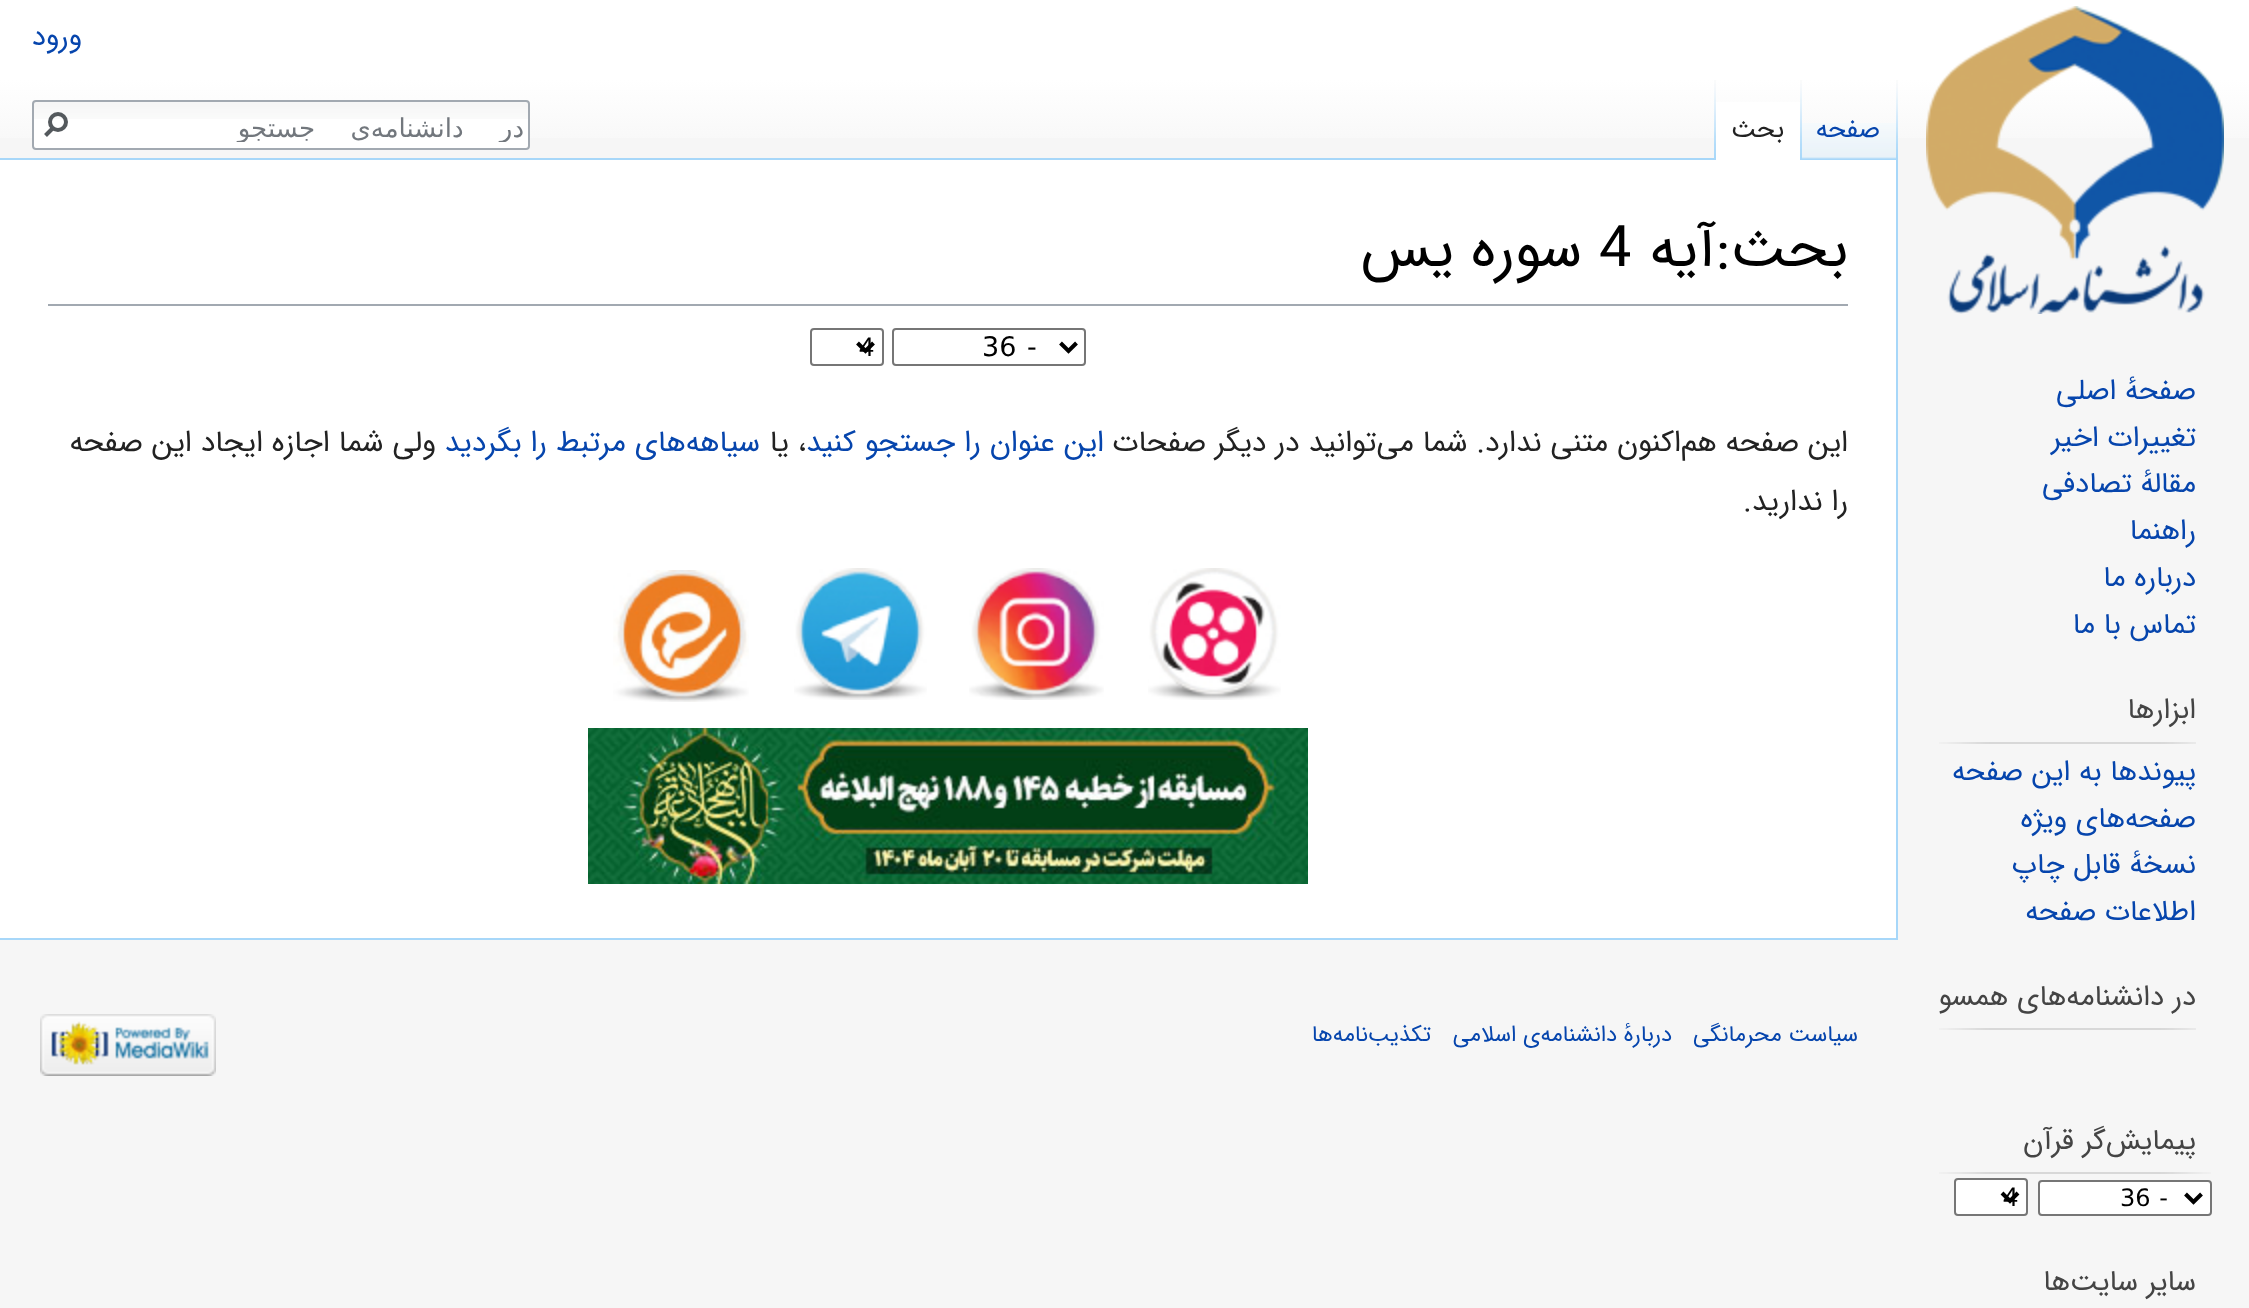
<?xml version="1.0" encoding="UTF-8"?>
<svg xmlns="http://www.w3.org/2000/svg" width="2249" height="1308">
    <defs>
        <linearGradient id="g1" gradientUnits="userSpaceOnUse" x1="1125" y1="0" x2="1125" y2="160"><stop offset="0.5" stop-color="#FFFFFF"/><stop offset="1" stop-color="#F6F6F6"/></linearGradient>
        <clipPath id="clip1"><rect x="104" y="112" width="420" height="30"/></clipPath>
    </defs>
    <rect width="100%" height="100%" fill="#F6F6F6"/>
    <rect x="0" y="0" width="2249" height="138" fill="url(#g1)"/>
    <text x="82" y="45" font-family="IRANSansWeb" font-size="28.75" direction="rtl" fill="#0645AD">ورود</text>
    <image x="1896" y="80" width="2" height="78" href="img_01.png"/>
    <rect x="0" y="158" width="1898" height="2" fill="#A7D7F9"/>
    <image x="1802" y="123" width="94" height="36" href="img_02.png"/>
    <image x="1800" y="80" width="2" height="79" href="img_03.png"/>
    <text x="1880" y="137" font-family="IRANSansWeb" font-size="26" direction="rtl" fill="#0645AD">صفحه</text>
    <rect x="1716" y="102" width="84" height="58" fill="#FFFFFF"/>
    <image x="1714" y="80" width="2" height="80" href="img_04.png"/>
    <text x="1784" y="137" font-family="IRANSansWeb" font-size="26" direction="rtl" fill="#222222">بحث</text>
    <rect x="32" y="100" width="498" height="50" rx="4" fill="#FFFFFF"/>
    <image x="32" y="102" width="498" height="17" href="img_05.png"/>
    <rect x="33" y="101" width="496" height="48" rx="3" fill="none" stroke="#A2A9B1" stroke-width="2"/>
    <g clip-path="url(#clip1)">
        <text x="524" y="137" word-spacing="28" font-family="DejaVu Sans" font-size="26" direction="rtl" fill="#72777D">در دانشنامه‌ی</text>
        <text x="315" y="137" font-family="DejaVu Sans" font-size="26" direction="rtl" fill="#72777D">جستجو</text>
    </g>
    <path d="M 45.5 135.5 L 53.5 127.5" fill="none" stroke="#54595D" stroke-width="4"/>
    <circle cx="58" cy="122" r="8" fill="none" stroke="#54595D" stroke-width="4"/>
    <image x="1926" y="6" width="298" height="308" href="img_06.png"/>
    <text font-family="IRANSansWeb" font-size="28.75" direction="rtl" fill="#0645AD">
        <tspan x="2196" y="399">صفحهٔ اصلی</tspan>
        <tspan x="2196" y="446">تغییرات اخیر</tspan>
        <tspan x="2196" y="492">مقالهٔ تصادفی</tspan>
        <tspan x="2196" y="539">راهنما</tspan>
        <tspan x="2196" y="586">درباره ما</tspan>
        <tspan x="2196" y="633">تماس با ما</tspan>
    </text>
    <text x="2196" y="718" font-family="IRANSansWeb" font-size="28.75" direction="rtl" fill="#444444">ابزارها</text>
    <image x="1939" y="742" width="257" height="2" href="img_07.png"/>
    <text font-family="IRANSansWeb" font-size="28.75" direction="rtl" fill="#0645AD">
        <tspan x="2196" y="780">پیوندها به این صفحه</tspan>
        <tspan x="2196" y="827">صفحه‌های ویژه</tspan>
        <tspan x="2196" y="873">نسخهٔ قابل چاپ</tspan>
        <tspan x="2196" y="920">اطلاعات صفحه</tspan>
    </text>
    <text x="2196" y="1005" font-family="IRANSansWeb" font-size="28.75" direction="rtl" fill="#444444">در دانشنامه‌های همسو</text>
    <image x="1939" y="1028" width="257" height="2" href="img_07.png"/>
    <text x="2196" y="1149" font-family="IRANSansWeb" font-size="28.75" direction="rtl" fill="#444444">پیمایش‌گر قرآن</text>
    <image x="1939" y="1172" width="272" height="2" href="img_08.png"/>
    <rect x="2039" y="1181" width="172" height="34" rx="3" fill="#FFFFFF" stroke="#767676" stroke-width="2"/>
    <path d="M 2185.5 1194 L 2193.5 1202 L 2201.5 1194" fill="none" stroke="#000000" stroke-width="4"/>
    <text x="2120" y="1206" word-spacing="1" font-family="DejaVu Sans" font-size="24" fill="#000000">36 -</text>
    <rect x="1955" y="1179" width="72" height="36" rx="3" fill="#FFFFFF" stroke="#767676" stroke-width="2"/>
    <path d="M 2002 1193 L 2010 1201 L 2018 1193" fill="none" stroke="#000000" stroke-width="4"/>
    <text x="2003" y="1206" font-family="Liberation Sans" font-size="27" fill="#000000">4</text>
    <text x="2196" y="1290" font-family="IRANSansWeb" font-size="28.75" direction="rtl" fill="#444444">سایر سایت‌ها</text>
    <rect x="0" y="160" width="1896" height="778" fill="#FFFFFF"/>
    <rect x="1896" y="158" width="2" height="782" fill="#A7D7F9"/>
    <rect x="0" y="938" width="1898" height="2" fill="#A7D7F9"/>
    <rect x="48" y="304" width="1800" height="2" fill="#A2A9B1"/>
    <text x="1848" y="266" font-family="IRANSansWeb" font-size="57.5" direction="rtl" fill="#000000">بحث:آیه</text>
    <text x="1599" y="266" font-family="IRANSansWeb" font-size="57.5" fill="#000000">4</text>
    <text x="1582" y="266" font-family="IRANSansWeb" font-size="57.5" direction="rtl" fill="#000000">سوره یس</text>
    <rect x="893" y="329" width="192" height="36" rx="3" fill="none" stroke="#767676" stroke-width="2"/>
    <path d="M 1060.5 343 L 1068.5 351 L 1076.5 343" fill="none" stroke="#000000" stroke-width="4"/>
    <text x="982" y="356" word-spacing="2" font-family="DejaVu Sans" font-size="27" fill="#000000">36 -</text>
    <rect x="811" y="329" width="72" height="36" rx="3" fill="none" stroke="#767676" stroke-width="2"/>
    <path d="M 857.5 343 L 865.5 351 L 873.5 343" fill="none" stroke="#000000" stroke-width="4"/>
    <text x="859" y="356" font-family="Liberation Sans" font-size="27" fill="#000000">4</text>
    <text x="1848" y="451" font-family="IRANSansWeb" font-size="29.75" direction="rtl" fill="#222222">این صفحه هم‌اکنون متنی ندارد. شما می‌توانید در دیگر صفحات</text>
    <text x="1104" y="451" font-family="IRANSansWeb" font-size="29.75" direction="rtl" fill="#0645AD">این عنوان را جستجو کنید</text>
    <text x="806" y="451" font-family="IRANSansWeb" font-size="29.75" direction="rtl" fill="#222222">، یا</text>
    <text x="760" y="451" font-family="IRANSansWeb" font-size="29.75" direction="rtl" fill="#0645AD">سیاهه‌های مرتبط را بگردید</text>
    <text x="436" y="451" font-family="IRANSansWeb" font-size="29.75" direction="rtl" fill="#222222">ولی شما اجازه ایجاد این صفحه</text>
    <text x="1848" y="510" font-family="IRANSansWeb" font-size="29.75" direction="rtl" fill="#222222">را ندارید.</text>
    <image x="1148" y="568" width="133" height="132" href="img_09.png"/>
    <image x="969" y="568" width="135" height="132" href="img_10.png"/>
    <image x="794" y="568" width="133" height="132" href="img_11.png"/>
    <image x="613" y="570" width="136" height="132" href="img_12.png"/>
    <image x="588" y="728" width="720" height="156" href="img_13.png"/>
    <text x="1858" y="1041" font-family="IRANSansWeb" font-size="22.5" direction="rtl" fill="#0645AD">سیاست محرمانگی</text>
    <text x="1672" y="1041" font-family="IRANSansWeb" font-size="22.5" direction="rtl" fill="#0645AD">دربارهٔ دانشنامه‌ی اسلامی</text>
    <text x="1431" y="1041" font-family="IRANSansWeb" font-size="22.5" direction="rtl" fill="#0645AD">تکذیب‌نامه‌ها</text>
    <image x="40" y="1014" width="176" height="62" href="img_14.png"/>
</svg>
